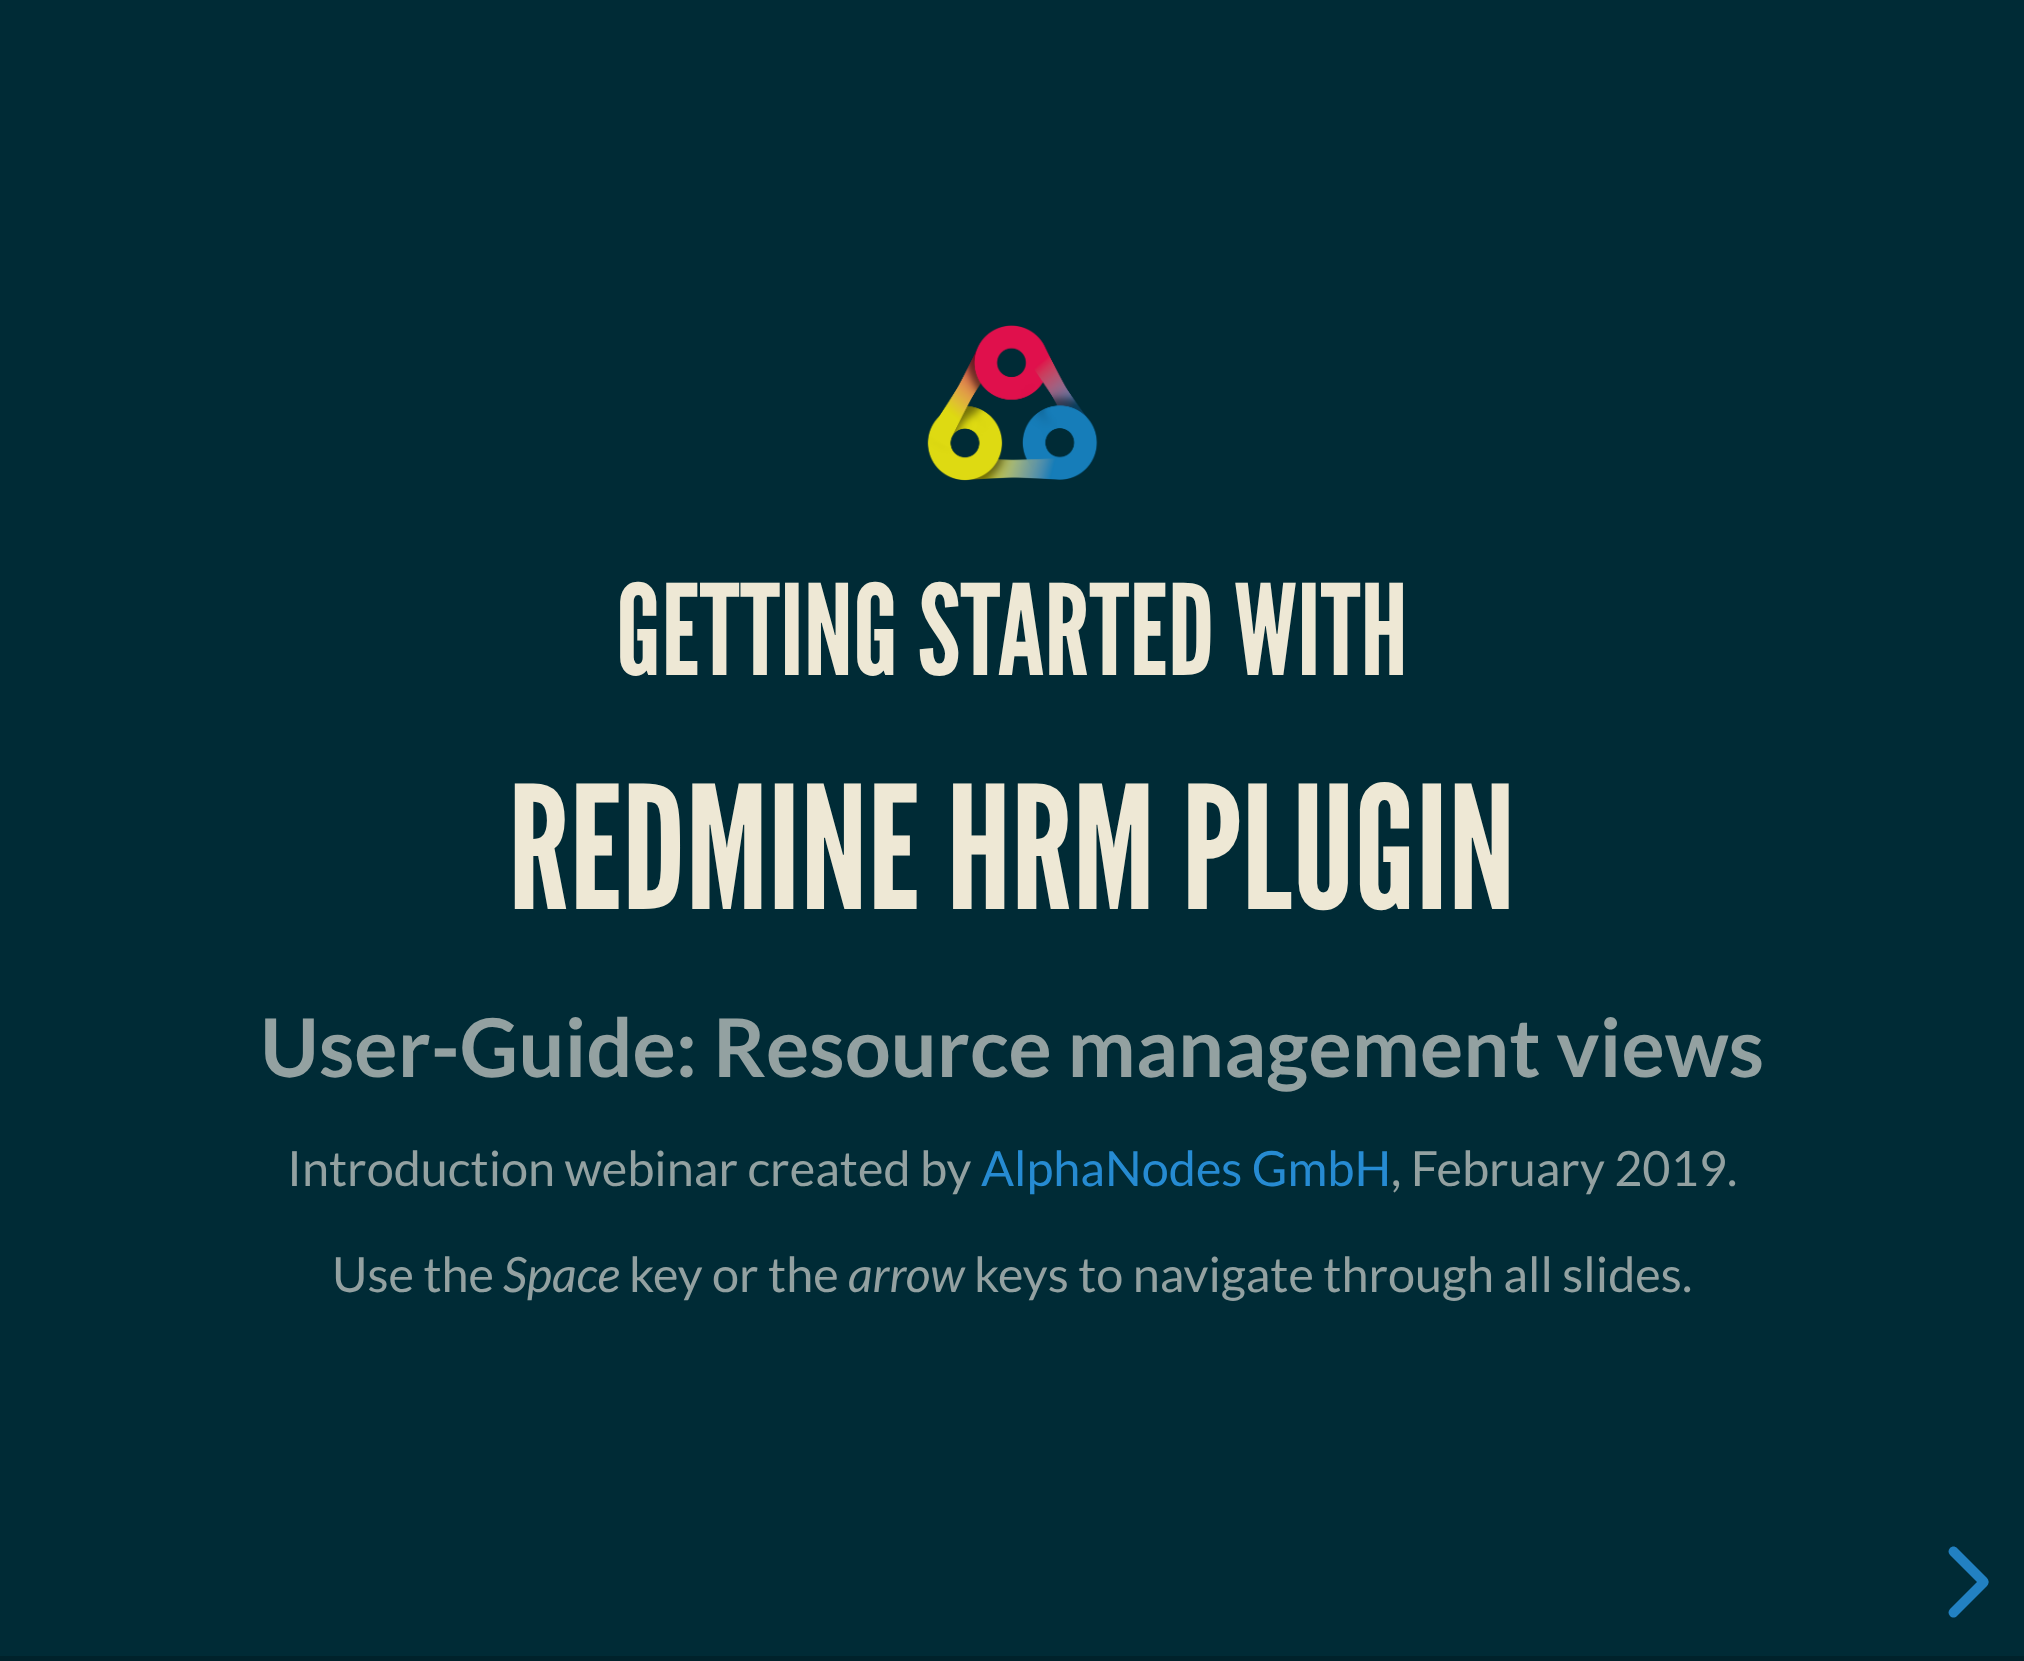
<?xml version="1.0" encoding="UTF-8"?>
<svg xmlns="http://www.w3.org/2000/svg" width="2024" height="1661">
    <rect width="100%" height="100%" fill="#002B36"/>
    <image x="927" y="325" width="171" height="156" href="img_01.png"/>
    <text x="616" y="675" font-family="League Gothic" font-size="125.5" fill="#EEE8D5">GETTING STARTED WITH</text>
    <text x="508" y="909" font-family="League Gothic" font-size="170.75" fill="#EEE8D5">REDMINE HRM PLUGIN</text>
    <text x="260" y="1077" font-family="Lato" font-size="81" font-weight="700" fill="#93A1A1">User-Guide: Resource management views</text>
    <text x="287" y="1186" font-family="Lato" font-size="48.6" fill="#93A1A1">Introduction webinar created by</text>
    <text x="981" y="1186" font-family="Lato" font-size="48.6" fill="#268BD2">AlphaNodes GmbH</text>
    <text x="1391" y="1186" font-family="Lato" font-size="48.6" fill="#93A1A1">, February 2019.</text>
    <text x="332" y="1292" font-family="Lato" font-size="48.6" fill="#93A1A1">Use the</text>
    <text x="503" y="1292" font-family="Lato" font-size="48.6" font-style="italic" fill="#93A1A1">Space</text>
    <text x="629" y="1292" font-family="Lato" font-size="48.6" fill="#93A1A1">key or the</text>
    <text x="848" y="1292" font-family="Lato" font-size="48.6" font-style="italic" fill="#93A1A1">arrow</text>
    <text x="974" y="1292" font-family="Lato" font-size="48.6" fill="#93A1A1">keys to navigate through all slides.</text>
    <path d="M 1980 1585 L 1950 1555 C 1948 1553 1948 1550 1950 1548 C 1952 1546 1955 1546 1957 1548 L 1987 1578 C 1989 1580 1989 1583 1987 1585 C 1985 1587 1982 1587 1980 1585 Z" fill="#2281C2"/>
    <path d="M 1987 1586 L 1957 1616 C 1955 1618 1952 1618 1950 1616 C 1948 1614 1948 1611 1950 1609 L 1980 1579 C 1982 1577 1985 1577 1987 1579 C 1989 1581 1989 1584 1987 1586 Z" fill="#2281C2"/>
    <rect x="0" y="1656" width="2024" height="5" fill="#00222B"/>
</svg>
